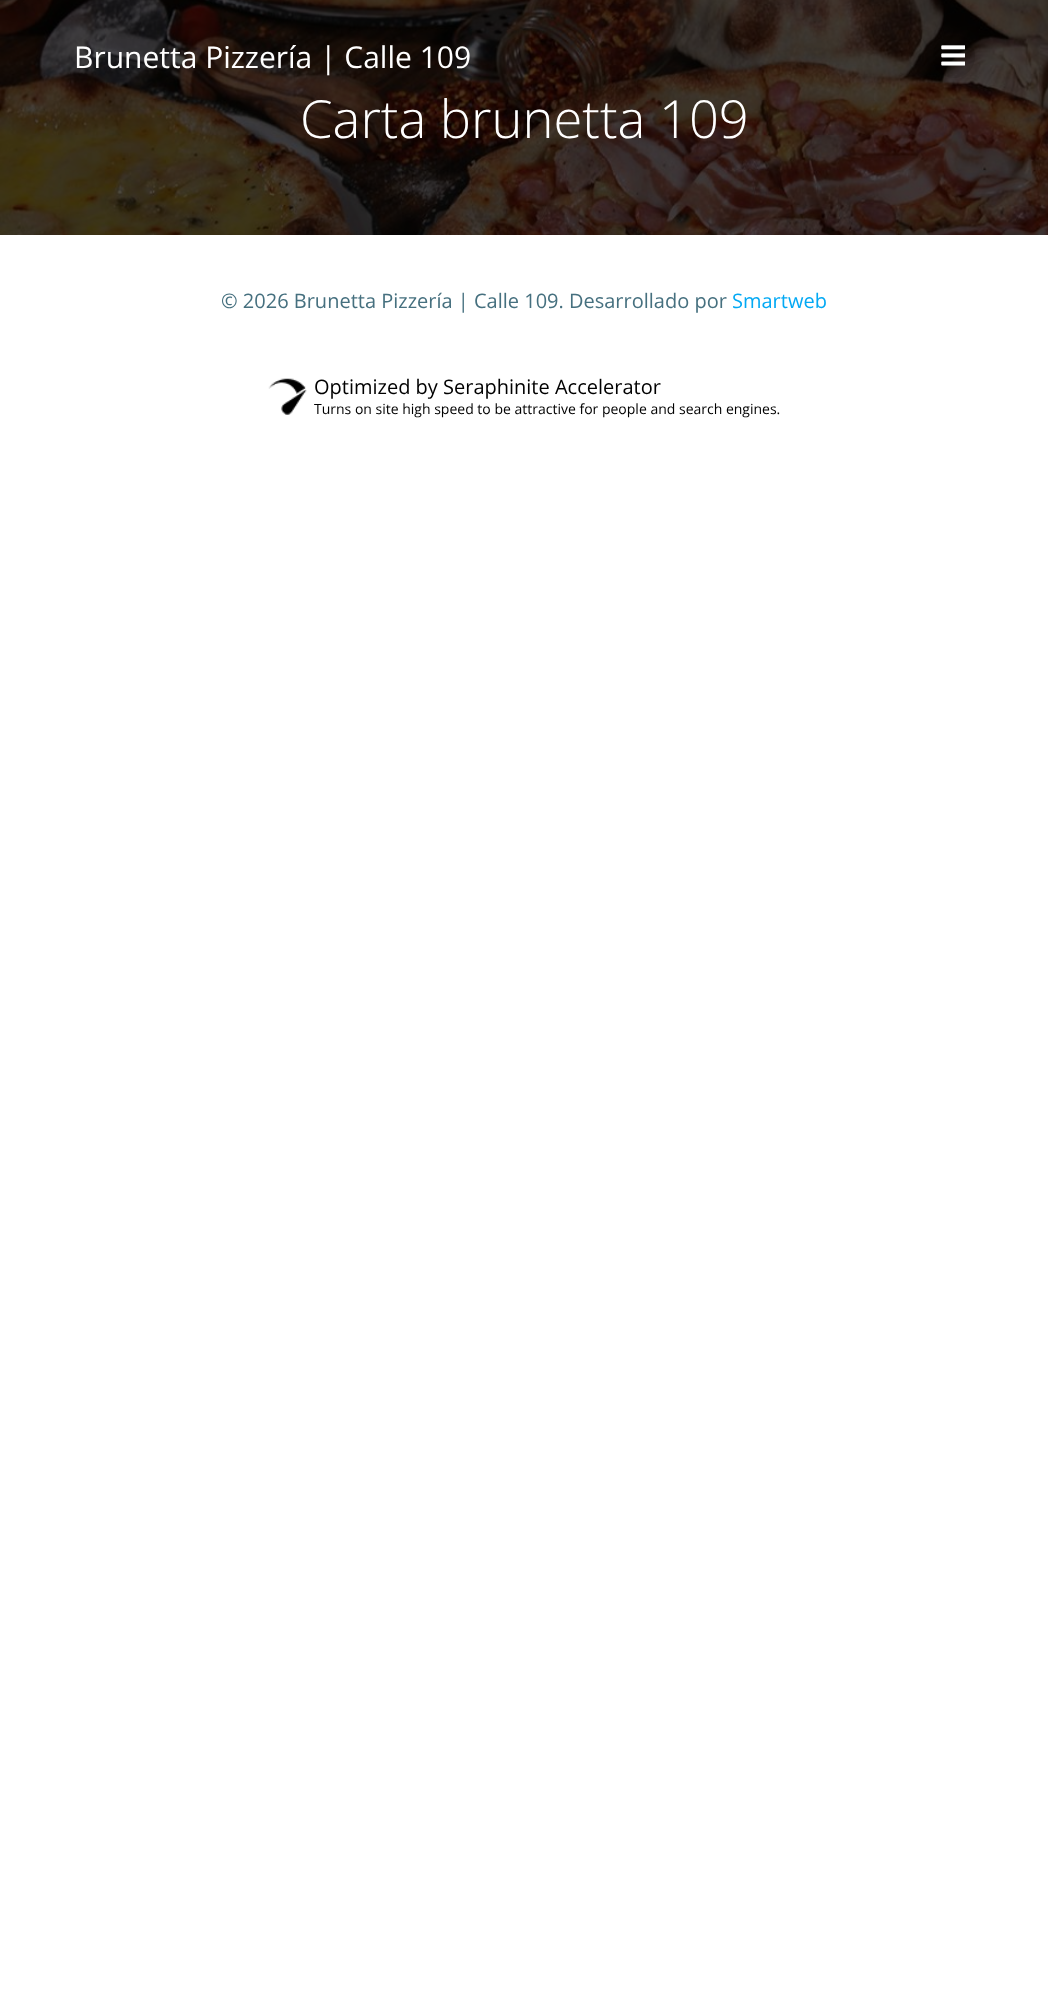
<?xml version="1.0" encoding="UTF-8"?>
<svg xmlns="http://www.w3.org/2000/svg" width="1048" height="2004">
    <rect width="100%" height="100%" fill="#FFFFFF"/>
    <image x="0" y="0" width="1048" height="235" href="img_02.png"/>
    <text x="74" y="68" font-family="Open Sans" font-size="30" fill="#FFFFFF">Brunetta Pizzería | Calle 109</text>
    <rect x="933" y="35" width="42" height="43" rx="21" fill="#000000" fill-opacity="0.1"/>
    <image x="941" y="45" width="24" height="21" href="img_01.png"/>
    <text x="300" y="138" font-family="Open Sans" font-size="52.5" font-weight="300" fill="#FFFFFF">Carta brunetta 109</text>
    <text x="221" y="308" font-family="Open Sans" font-size="20" fill="#46707F">© 2026 Brunetta Pizzería | Calle 109. Desarrollado por</text>
    <text x="732" y="308" font-family="Open Sans" font-size="20" fill="#03A9F4">Smartweb</text>
    <image x="268" y="378" width="39" height="37" href="img_03.png"/>
    <text x="314" y="394" font-family="Open Sans" font-size="20" fill="#000000">Optimized by Seraphinite Accelerator</text>
    <text x="314" y="414" font-family="Open Sans" font-size="14" fill="#000000">Turns on site high speed to be attractive for people and search engines.</text>
</svg>
